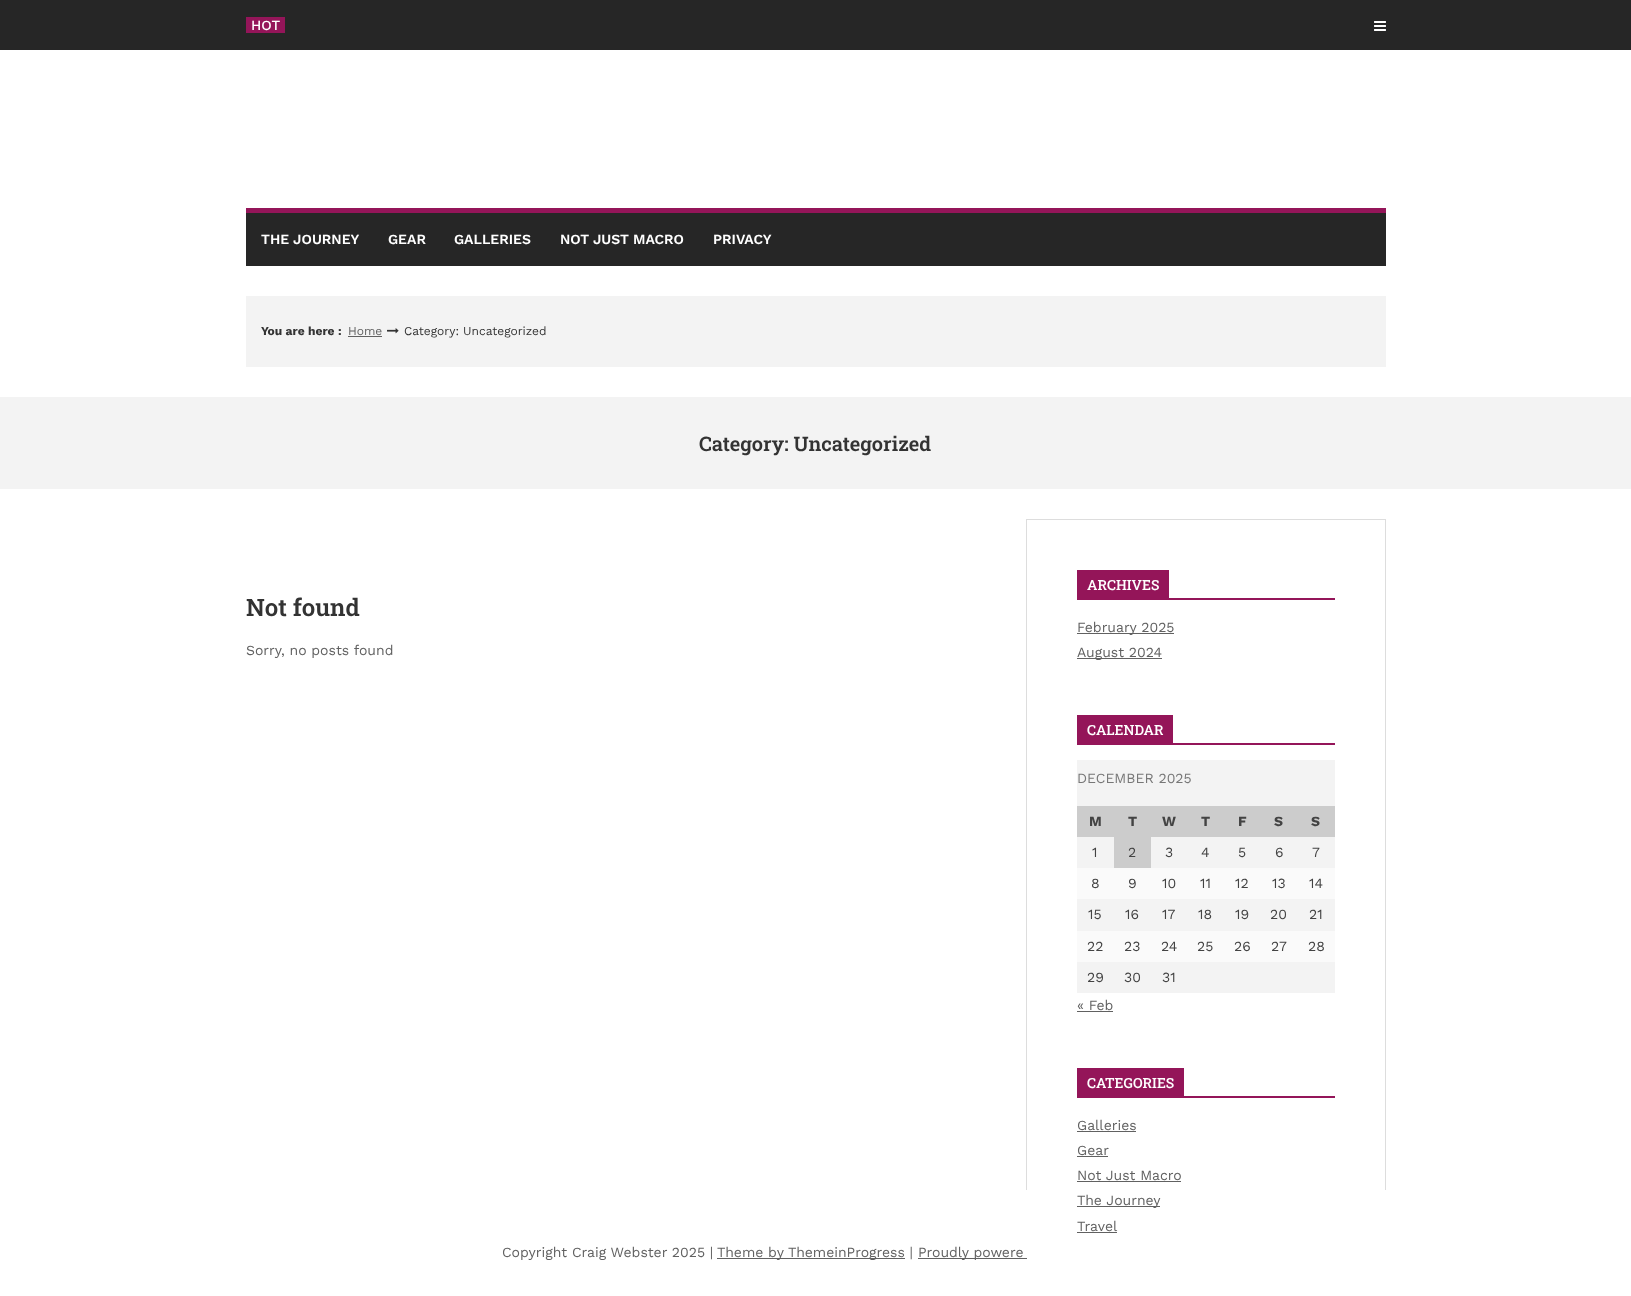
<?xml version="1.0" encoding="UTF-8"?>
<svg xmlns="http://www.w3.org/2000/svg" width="1631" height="1296">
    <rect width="100%" height="100%" fill="#FFFFFF"/>
    <rect x="0" y="0" width="1631" height="50" fill="#262626"/>
    <rect x="246" y="17" width="39" height="16" fill="#941559"/>
    <text x="251" y="30" font-family="Work Sans" font-size="14" font-weight="500" fill="#FFFFFF">HOT</text>
    <image x="1374" y="21" width="12" height="10" href="img_01.png"/>
    <rect x="246" y="208" width="1140" height="5" fill="#941559"/>
    <rect x="246" y="213" width="1140" height="53" fill="#262626"/>
    <text x="261" y="244" font-family="Work Sans" font-size="14" font-weight="600" fill="#FFFFFF">THE JOURNEY</text>
    <text x="388" y="244" font-family="Work Sans" font-size="14" font-weight="600" fill="#FFFFFF">GEAR</text>
    <text x="454" y="244" font-family="Work Sans" font-size="14" font-weight="600" fill="#FFFFFF">GALLERIES</text>
    <text x="560" y="244" font-family="Work Sans" font-size="14" font-weight="600" fill="#FFFFFF">NOT JUST MACRO</text>
    <text x="713" y="244" font-family="Work Sans" font-size="14" font-weight="600" fill="#FFFFFF">PRIVACY</text>
    <rect x="246" y="296" width="1140" height="71" fill="#F3F3F3"/>
    <text x="261" y="335" font-family="Work Sans" font-size="12" font-weight="700" fill="#333333">You are here :</text>
    <text x="348" y="335" font-family="Work Sans" font-size="12" fill="#616161">Home</text>
    <rect x="348" y="336" width="34" height="1" fill="#616161"/>
    <image x="387" y="328" width="12" height="6" href="img_02.png"/>
    <text x="404" y="335" font-family="Work Sans" font-size="12" fill="#333333">Category: Uncategorized</text>
    <rect x="0" y="397" width="1631" height="92" fill="#F3F3F3"/>
    <text x="699" y="451" font-family="Roboto Slab" font-size="20" font-weight="600" fill="#333333">Category: Uncategorized</text>
    <text x="246" y="616" font-family="Roboto Slab" font-size="24" font-weight="600" fill="#333333">Not found</text>
    <text x="246" y="655" font-family="Work Sans" font-size="14" fill="#616161">Sorry, no posts found</text>
    <rect x="1026.5" y="519.5" width="359" height="770" fill="none" stroke="#DDDDDD"/>
    <rect x="1077" y="570" width="92" height="28" fill="#941559"/>
    <text x="1087" y="590" font-family="Roboto Slab" font-size="14" font-weight="500" fill="#FFFFFF">ARCHIVES</text>
    <rect x="1077" y="598" width="258" height="2" fill="#941559"/>
    <rect x="1077" y="633" width="97" height="1" fill="#616161"/>
    <text x="1077" y="632" font-family="Work Sans" font-size="14" fill="#616161">February 2025</text>
    <rect x="1077" y="658" width="85" height="1" fill="#616161"/>
    <text x="1077" y="657" font-family="Work Sans" font-size="14" fill="#616161">August 2024</text>
    <rect x="1077" y="715" width="96" height="28" fill="#941559"/>
    <text x="1087" y="735" font-family="Roboto Slab" font-size="14" font-weight="500" fill="#FFFFFF">CALENDAR</text>
    <rect x="1077" y="743" width="258" height="2" fill="#941559"/>
    <rect x="1077" y="760" width="258" height="233" fill="#F3F3F3"/>
    <text x="1077" y="783" font-family="Work Sans" font-size="14" fill="#777777">DECEMBER 2025</text>
    <rect x="1077" y="806" width="258" height="31" fill="#CCCCCC"/>
    <text x="1089" y="826" font-family="Work Sans" font-size="14" font-weight="700" fill="#434343">M</text>
    <text x="1128" y="826" font-family="Work Sans" font-size="14" font-weight="700" fill="#434343">T</text>
    <text x="1162" y="826" font-family="Work Sans" font-size="14" font-weight="700" fill="#434343">W</text>
    <text x="1201" y="826" font-family="Work Sans" font-size="14" font-weight="700" fill="#434343">T</text>
    <text x="1238" y="826" font-family="Work Sans" font-size="14" font-weight="700" fill="#434343">F</text>
    <text x="1274" y="826" font-family="Work Sans" font-size="14" font-weight="700" fill="#434343">S</text>
    <text x="1311" y="826" font-family="Work Sans" font-size="14" font-weight="700" fill="#434343">S</text>
    <text x="1092" y="857" font-family="Work Sans" font-size="14" fill="#434343">1</text>
    <rect x="1114" y="837" width="37" height="31" fill="#CCCCCC"/>
    <text x="1128" y="857" font-family="Work Sans" font-size="14" fill="#434343">2</text>
    <text x="1165" y="857" font-family="Work Sans" font-size="14" fill="#434343">3</text>
    <text x="1201" y="857" font-family="Work Sans" font-size="14" fill="#434343">4</text>
    <text x="1238" y="857" font-family="Work Sans" font-size="14" fill="#434343">5</text>
    <text x="1275" y="857" font-family="Work Sans" font-size="14" fill="#434343">6</text>
    <text x="1312" y="857" font-family="Work Sans" font-size="14" fill="#434343">7</text>
    <rect x="1077" y="868" width="258" height="31" fill="#FAFAFA"/>
    <text x="1091" y="888" font-family="Work Sans" font-size="14" fill="#434343">8</text>
    <text x="1128" y="888" font-family="Work Sans" font-size="14" fill="#434343">9</text>
    <text x="1162" y="888" font-family="Work Sans" font-size="14" fill="#434343">10</text>
    <text x="1200" y="888" font-family="Work Sans" font-size="14" fill="#434343">11</text>
    <text x="1235" y="888" font-family="Work Sans" font-size="14" fill="#434343">12</text>
    <text x="1272" y="888" font-family="Work Sans" font-size="14" fill="#434343">13</text>
    <text x="1309" y="888" font-family="Work Sans" font-size="14" fill="#434343">14</text>
    <text x="1088" y="919" font-family="Work Sans" font-size="14" fill="#434343">15</text>
    <text x="1125" y="919" font-family="Work Sans" font-size="14" fill="#434343">16</text>
    <text x="1162" y="919" font-family="Work Sans" font-size="14" fill="#434343">17</text>
    <text x="1198" y="919" font-family="Work Sans" font-size="14" fill="#434343">18</text>
    <text x="1235" y="919" font-family="Work Sans" font-size="14" fill="#434343">19</text>
    <text x="1270" y="919" font-family="Work Sans" font-size="14" fill="#434343">20</text>
    <text x="1309" y="919" font-family="Work Sans" font-size="14" fill="#434343">21</text>
    <rect x="1077" y="931" width="258" height="31" fill="#FAFAFA"/>
    <text x="1087" y="951" font-family="Work Sans" font-size="14" fill="#434343">22</text>
    <text x="1124" y="951" font-family="Work Sans" font-size="14" fill="#434343">23</text>
    <text x="1161" y="951" font-family="Work Sans" font-size="14" fill="#434343">24</text>
    <text x="1197" y="951" font-family="Work Sans" font-size="14" fill="#434343">25</text>
    <text x="1234" y="951" font-family="Work Sans" font-size="14" fill="#434343">26</text>
    <text x="1271" y="951" font-family="Work Sans" font-size="14" fill="#434343">27</text>
    <text x="1308" y="951" font-family="Work Sans" font-size="14" fill="#434343">28</text>
    <text x="1087" y="982" font-family="Work Sans" font-size="14" fill="#434343">29</text>
    <text x="1124" y="982" font-family="Work Sans" font-size="14" fill="#434343">30</text>
    <text x="1162" y="982" font-family="Work Sans" font-size="14" fill="#434343">31</text>
    <text x="1077" y="1010" font-family="Work Sans" font-size="14" fill="#616161">« Feb</text>
    <rect x="1077" y="1011" width="36" height="1" fill="#616161"/>
    <rect x="1077" y="1068" width="107" height="28" fill="#941559"/>
    <text x="1087" y="1088" font-family="Roboto Slab" font-size="14" font-weight="500" fill="#FFFFFF">CATEGORIES</text>
    <rect x="1077" y="1096" width="258" height="2" fill="#941559"/>
    <text x="1077" y="1130" font-family="Work Sans" font-size="14" fill="#616161">Galleries</text>
    <rect x="1077" y="1131" width="59" height="1" fill="#616161"/>
    <text x="1077" y="1155" font-family="Work Sans" font-size="14" fill="#616161">Gear</text>
    <rect x="1077" y="1156" width="31" height="1" fill="#616161"/>
    <text x="1077" y="1180" font-family="Work Sans" font-size="14" fill="#616161">Not Just Macro</text>
    <rect x="1077" y="1181" width="104" height="1" fill="#616161"/>
    <rect x="1026" y="1190" width="360" height="100" fill="#FFFFFF"/>
    <rect x="1077" y="1206" width="83" height="1" fill="#616161"/>
    <text font-family="Work Sans" font-size="14" fill="#616161">
        <tspan x="1077" y="1205">The Journey</tspan>
        <tspan x="1077" y="1231">Travel</tspan>
    </text>
    <rect x="1077" y="1232" width="40" height="1" fill="#616161"/>
    <text x="502" y="1257" font-family="Work Sans" font-size="14" fill="#616161">Copyright Craig Webster 2025 |</text>
    <rect x="717" y="1258" width="188" height="1" fill="#616161"/>
    <text x="717" y="1257" font-family="Work Sans" font-size="14" fill="#616161">Theme by ThemeinProgress |</text>
    <rect x="918" y="1258" width="109" height="1" fill="#616161"/>
    <text x="918" y="1257" font-family="Work Sans" font-size="14" fill="#616161">Proudly powere</text>
</svg>
